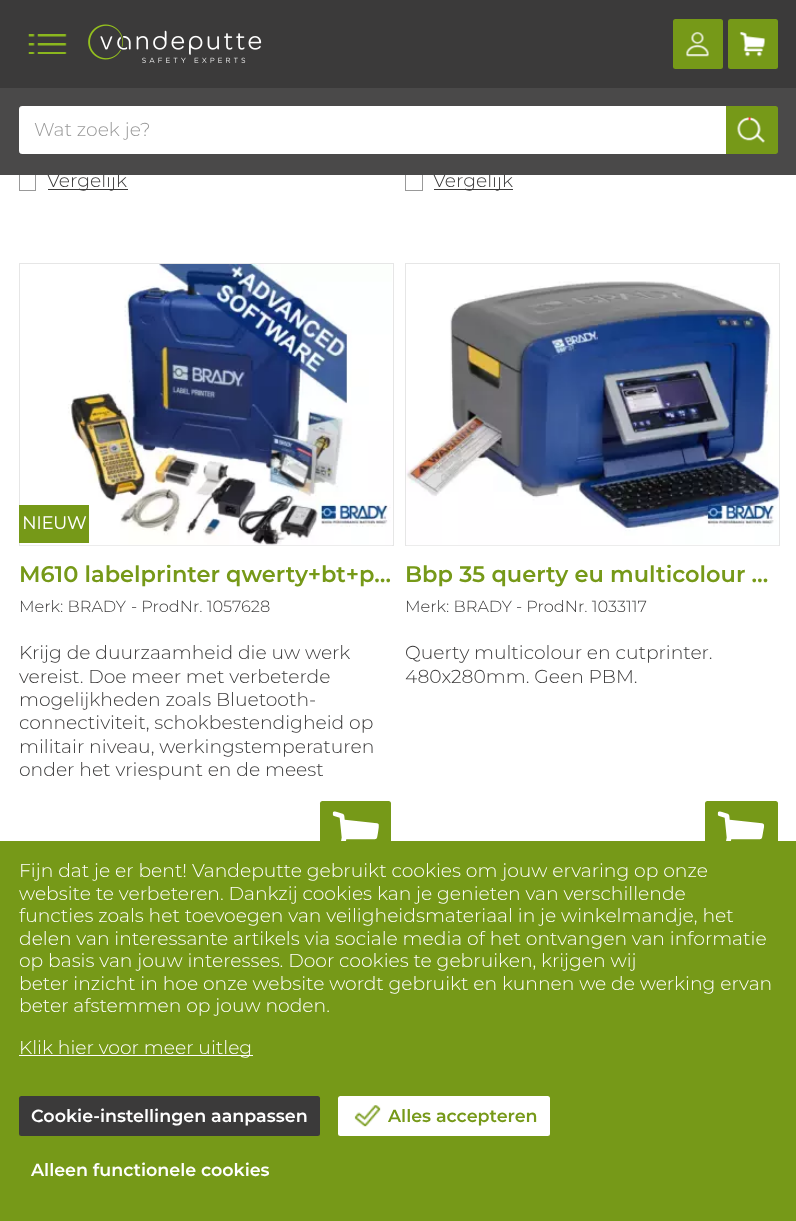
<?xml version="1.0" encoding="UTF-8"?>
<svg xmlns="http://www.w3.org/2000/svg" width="796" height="1221">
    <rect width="100%" height="100%" fill="#FFFFFF"/>
    <rect x="0" y="0" width="796" height="88" fill="#3B3A3A"/>
    <image x="28" y="34" width="39" height="20" href="img_01.png"/>
    <image x="88" y="24" width="174" height="39" href="img_02.png"/>
    <rect x="673" y="19" width="50" height="50" rx="2.5" fill="#769918"/>
    <image x="686" y="32" width="23" height="25" href="img_03.png"/>
    <rect x="728" y="19" width="50" height="50" rx="2.5" fill="#769918"/>
    <image x="739" y="32" width="27" height="25" href="img_04.png"/>
    <rect x="19.5" y="174.5" width="16" height="16" fill="none" stroke="#999999"/>
    <rect x="48" y="189" width="80" height="1" fill="#3B3A3A"/>
    <text x="47" y="187" font-family="Montserrat" font-size="18.75" font-weight="300" fill="#3B3A3A">Vergelijk</text>
    <rect x="405.5" y="174.5" width="17" height="16" fill="none" stroke="#999999"/>
    <rect x="434" y="189" width="79" height="1" fill="#3B3A3A"/>
    <text x="433" y="187" font-family="Montserrat" font-size="18.75" font-weight="300" fill="#3B3A3A">Vergelijk</text>
    <rect x="0" y="88" width="796" height="87" fill="#4A4949"/>
    <path d="M 21.5 106.5 H 768 C 773 106.5 777.5 111 777.5 116 V 144 C 777.5 149 773 153.5 768 153.5 H 21.5 C 20.5 153.5 19.5 152.5 19.5 151.5 V 108.5 C 19.5 107.5 20.5 106.5 21.5 106.5 Z" fill="#FFFFFF" stroke="#FFFFFF"/>
    <text x="34" y="136" font-family="Montserrat" font-size="18.75" font-weight="300" fill="#999999">Wat zoek je?</text>
    <path d="M 726 106 H 775.5 C 777 106 778 107 778 108.5 V 151.5 C 778 153 777 154 775.5 154 H 726 Z" fill="#769918"/>
    <image x="737" y="117" width="28" height="26" href="img_05.png"/>
    <rect x="19.5" y="263.5" width="374" height="282" fill="none" stroke="#E6E6E6"/>
    <image x="20" y="264" width="372" height="282" href="img_06.png"/>
    <rect x="19" y="505" width="70" height="38" fill="#769918"/>
    <text x="22" y="529" font-family="Montserrat" font-size="17.5" font-weight="700" fill="#FFFFFF">NIEUW</text>
    <text x="19" y="582" font-family="Montserrat" font-size="22.5" font-weight="600" fill="#769918">M610 labelprinter qwerty+bt+p…</text>
    <text x="19" y="612" font-family="Montserrat" font-size="16.25" font-weight="300" fill="#3B3A3A">Merk: BRADY</text>
    <text x="131" y="612" font-family="Montserrat" font-size="16.25" font-weight="300" fill="#3B3A3A">- ProdNr. 1057628</text>
    <text font-family="Montserrat" font-size="18.75" font-weight="300" fill="#3B3A3A">
        <tspan x="19" y="659">Krijg de duurzaamheid die uw werk</tspan>
        <tspan x="19" y="683">vereist. Doe meer met verbeterde</tspan>
        <tspan x="19" y="706">mogelijkheden zoals Bluetooth-</tspan>
        <tspan x="19" y="729">connectiviteit, schokbestendigheid op</tspan>
        <tspan x="19" y="753">militair niveau, werkingstemperaturen</tspan>
        <tspan x="19" y="776">onder het vriespunt en de meest</tspan>
    </text>
    <rect x="320" y="801" width="71" height="63" rx="2.5" fill="#769918"/>
    <image x="332" y="811" width="47" height="30" href="img_07.png"/>
    <rect x="405.5" y="263.5" width="374" height="282" fill="none" stroke="#E6E6E6"/>
    <image x="406" y="281" width="373" height="265" href="img_08.png"/>
    <text x="405" y="582" font-family="Montserrat" font-size="22.5" font-weight="600" fill="#769918">Bbp 35 querty eu multicolour …</text>
    <text x="405" y="612" font-family="Montserrat" font-size="16.25" font-weight="300" fill="#3B3A3A">Merk: BRADY</text>
    <text x="516" y="612" font-family="Montserrat" font-size="16.25" font-weight="300" fill="#3B3A3A">- ProdNr. 1033117</text>
    <text font-family="Montserrat" font-size="18.75" font-weight="300" fill="#3B3A3A">
        <tspan x="405" y="659">Querty multicolour en cutprinter.</tspan>
        <tspan x="405" y="683">480x280mm. Geen PBM.</tspan>
    </text>
    <rect x="705" y="801" width="73" height="63" rx="2.5" fill="#769918"/>
    <image x="717" y="811" width="48" height="30" href="img_09.png"/>
    <rect x="0" y="841" width="796" height="380" fill="#769918"/>
    <text font-family="Montserrat" font-size="18.75" font-weight="300" fill="#FFFFFF">
        <tspan x="19" y="877">Fijn dat je er bent! Vandeputte gebruikt cookies om jouw ervaring op onze</tspan>
        <tspan x="19" y="900">website te verbeteren. Dankzij cookies kan je genieten van verschillende</tspan>
        <tspan x="19" y="922">functies zoals het toevoegen van veiligheidsmateriaal in je winkelmandje, het</tspan>
        <tspan x="19" y="945">delen van interessante artikels via sociale media of het ontvangen van informatie</tspan>
        <tspan x="19" y="967">op basis van jouw interesses. Door cookies te gebruiken, krijgen wij</tspan>
        <tspan x="19" y="990">beter inzicht in hoe onze website wordt gebruikt en kunnen we de werking ervan</tspan>
        <tspan x="19" y="1012">beter afstemmen op jouw noden.</tspan>
    </text>
    <rect x="19" y="1055" width="234" height="1" fill="#FFFFFF"/>
    <text x="19" y="1054" font-family="Montserrat" font-size="18.75" font-weight="300" fill="#FFFFFF">Klik hier voor meer uitleg</text>
    <rect x="19" y="1096" width="301" height="40" rx="2.5" fill="#3B3A3A"/>
    <text x="31" y="1122" font-family="Montserrat" font-size="17.5" font-weight="600" fill="#FFFFFF">Cookie-instellingen aanpassen</text>
    <rect x="338" y="1096" width="212" height="40" rx="2.5" fill="#FFFFFF"/>
    <image x="354" y="1105" width="27" height="22" href="img_10.png"/>
    <text x="388" y="1122" font-family="Montserrat" font-size="17.5" font-weight="600" fill="#769918">Alles accepteren</text>
    <text x="31" y="1176" font-family="Montserrat" font-size="17.5" font-weight="600" fill="#FFFFFF">Alleen functionele cookies</text>
</svg>
